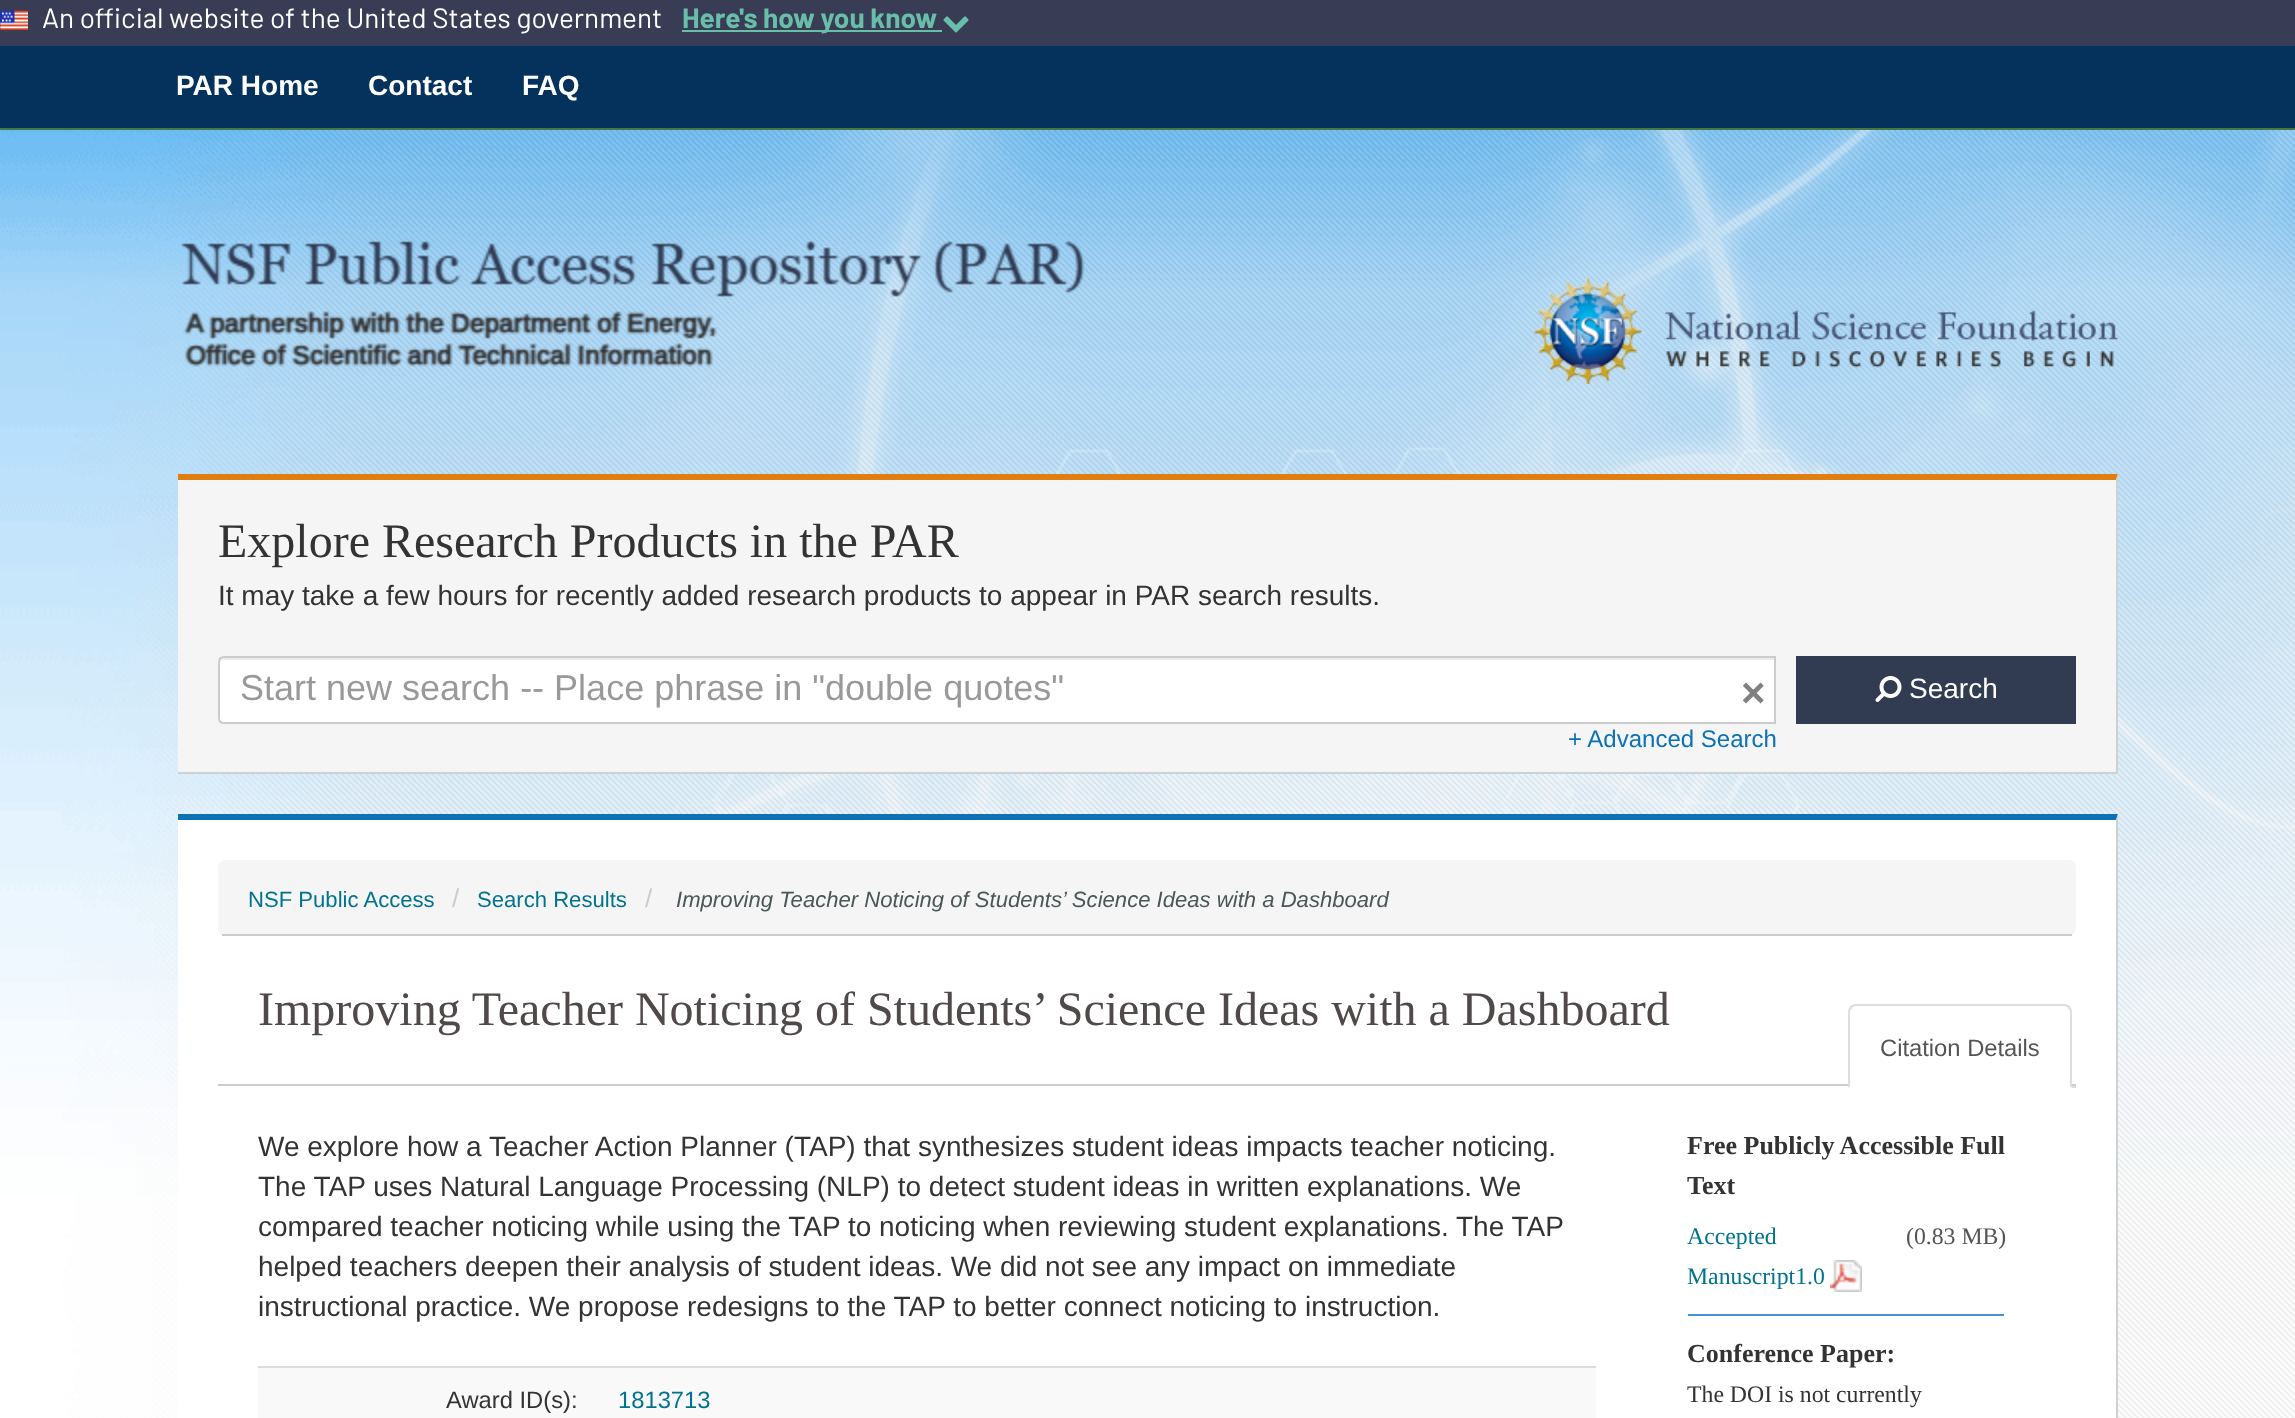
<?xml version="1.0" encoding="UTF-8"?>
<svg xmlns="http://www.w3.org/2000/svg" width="2295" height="1418">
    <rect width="100%" height="100%" fill="#FFFFFF"/>
    <image x="0" y="130" width="2295" height="1288" href="img_01.png"/>
    <rect x="0" y="0" width="2295" height="46" fill="#383C54"/>
    <image x="0" y="10" width="28" height="21" href="img_02.png"/>
    <text x="42" y="28" font-family="Barlow" font-size="28" fill="#FFFFFF">An official website of the United States government</text>
    <rect x="682" y="30" width="260" height="2" fill="#69BEAA"/>
    <text x="682" y="28" font-family="Barlow" font-size="28" font-weight="700" fill="#69BEAA">Here's how you know</text>
    <image x="943" y="16" width="26" height="17" href="img_03.png"/>
    <rect x="0" y="46" width="2295" height="82" fill="#04325D"/>
    <rect x="0" y="128" width="2295" height="2" fill="#447744"/>
    <text x="176" y="95" font-family="Liberation Sans" font-size="28" font-weight="700" fill="#FFFFFF">PAR Home</text>
    <text x="368" y="95" font-family="Liberation Sans" font-size="28" font-weight="700" fill="#FFFFFF">Contact</text>
    <text x="522" y="95" font-family="Liberation Sans" font-size="28" font-weight="700" fill="#FFFFFF">FAQ</text>
    <image x="181" y="241" width="904" height="126" href="img_04.png"/>
    <image x="1534" y="278" width="584" height="106" href="img_05.png"/>
    <rect x="178" y="474" width="1940" height="298" fill="#F5F5F5"/>
    <path d="M 178 474 H 2118 L 2116 480 H 178 Z" fill="#E07F11"/>
    <path d="M 2118 474 V 774 L 2116 772 V 480 Z" fill="#CCD1D4"/>
    <rect x="178" y="772" width="1940" height="2" fill="#CCD1D4"/>
    <text x="218" y="557" font-family="Liberation Serif" font-size="48" fill="#333333">Explore Research Products in the PAR</text>
    <text x="218" y="605" font-family="Liberation Sans" font-size="28" fill="#333333">It may take a few hours for recently added research products to appear in PAR search results.</text>
    <path d="M 224 656 H 1776 V 724 H 224 C 220.5 724 218 721.5 218 718 V 662 C 218 658.5 220.5 656 224 656 Z" fill="#FFFFFF"/>
    <path d="M 224 660 H 1774 V 658 H 224 C 220 658 220 661 220 664 C 220 662 222 660 224 660 Z" fill="#ECECEC"/>
    <path d="M 224 657 H 1775 V 723 H 224 C 221 723 219 721 219 718 V 662 C 219 659 221 657 224 657 Z" fill="none" stroke="#CCCCCC" stroke-width="2"/>
    <text x="240" y="700" font-family="Liberation Sans" font-size="36" fill="#999999">Start new search -- Place phrase in "double quotes"</text>
    <text x="1741" y="707" font-family="Liberation Sans" font-size="42" font-weight="700" fill="#808080">×</text>
    <rect x="1796" y="656" width="280" height="68" fill="#313B52"/>
    <image x="1875" y="676" width="27" height="26" href="img_06.png"/>
    <text x="1909" y="698" font-family="Liberation Sans" font-size="28" fill="#FFFFFF">Search</text>
    <text x="1568" y="747" font-family="Liberation Sans" font-size="24" fill="#0C72B5">+ Advanced Search</text>
    <rect x="178" y="814" width="1940" height="604" fill="#FFFFFF"/>
    <path d="M 178 814 H 2118 L 2116 820 H 178 Z" fill="#0C72B5"/>
    <path d="M 2118 814 V 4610 L 2116 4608 V 820 Z" fill="#CCD1D4"/>
    <rect x="218" y="860" width="1858" height="76" rx="8" fill="#F5F5F5"/>
    <rect x="222" y="934" width="1850" height="2" fill="#CCCCCC"/>
    <text x="248" y="907" font-family="Liberation Sans" font-size="22.1" fill="#00748D">NSF Public Access</text>
    <text x="452" y="907" font-family="Liberation Sans" font-size="26" fill="#CCCCCC">/</text>
    <text x="477" y="907" font-family="Liberation Sans" font-size="22.1" fill="#00748D">Search Results</text>
    <text x="645" y="907" font-family="Liberation Sans" font-size="26" fill="#CCCCCC">/</text>
    <text x="676" y="907" font-family="Liberation Sans" font-size="22.1" font-style="italic" fill="#4A5657">Improving Teacher Noticing of Students’ Science Ideas with a Dashboard</text>
    <rect x="218" y="1084" width="1858" height="2" fill="#CCCCCC"/>
    <text x="258" y="1025" font-family="Liberation Serif" font-size="48" fill="#504949">Improving Teacher Noticing of Students’ Science Ideas with a Dashboard</text>
    <rect x="2072" y="1086" width="4" height="2" fill="#DDDDDD"/>
    <path d="M 1856 1004 H 2064 C 2068.5 1004 2072 1007.5 2072 1012 V 1088 H 1848 V 1012 C 1848 1007.5 1851.5 1004 1856 1004 Z" fill="#FFFFFF"/>
    <path d="M 1856 1004 C 1854 1004 1852 1005 1850 1006 L 1852 1008 C 1853 1007 1854 1006 1856 1006 H 2064 C 2066 1006 2067 1007 2068 1008 L 2070 1006 C 2068 1005 2066 1004 2064 1004 Z" fill="#DDDDDD"/>
    <path d="M 2072 1088 V 1012 C 2072 1010 2071 1008 2070 1006 L 2068 1008 L 2070 1011 V 1086 Z" fill="#DDDDDD"/>
    <path d="M 1848 1088 L 1850 1086 V 1011 L 1852 1008 L 1850 1006 C 1849 1008 1848 1010 1848 1012 Z" fill="#DDDDDD"/>
    <text x="1880" y="1056" font-family="Liberation Sans" font-size="23.75" fill="#555555">Citation Details</text>
    <text font-family="Liberation Sans" font-size="28" fill="#333333">
        <tspan x="258" y="1156">We explore how a Teacher Action Planner (TAP) that synthesizes student ideas impacts teacher noticing.</tspan>
        <tspan x="258" y="1196">The TAP uses Natural Language Processing (NLP) to detect student ideas in written explanations. We</tspan>
        <tspan x="258" y="1236">compared teacher noticing while using the TAP to noticing when reviewing student explanations. The TAP</tspan>
        <tspan x="258" y="1276">helped teachers deepen their analysis of student ideas. We did not see any impact on immediate</tspan>
        <tspan x="258" y="1316">instructional practice. We propose redesigns to the TAP to better connect noticing to instruction.</tspan>
    </text>
    <rect x="258" y="1368" width="1338" height="50" fill="#F9F9F9"/>
    <rect x="258" y="1366" width="1338" height="2" fill="#DDDDDD"/>
    <text x="446" y="1408" font-family="Liberation Sans" font-size="23.75" fill="#333333">Award ID(s):</text>
    <text x="618" y="1408" font-family="Liberation Sans" font-size="23.75" fill="#00748D">1813713</text>
    <text font-family="Liberation Serif" font-size="26" font-weight="700" fill="#333333">
        <tspan x="1687" y="1154">Free Publicly Accessible Full</tspan>
        <tspan x="1687" y="1194">Text</tspan>
    </text>
    <text x="1687" y="1244" font-family="Liberation Serif" font-size="23.75" fill="#00748D">Accepted</text>
    <text x="1906" y="1244" font-family="Liberation Serif" font-size="23.75" fill="#555555">(0.83 MB)</text>
    <text x="1687" y="1284" font-family="Liberation Serif" font-size="23.75" fill="#00748D">Manuscript1.0</text>
    <image x="1830" y="1260" width="32" height="32" href="img_07.png"/>
    <rect x="1688" y="1314" width="316" height="2" fill="#4391D7"/>
    <text x="1687" y="1362" font-family="Liberation Serif" font-size="26" font-weight="700" fill="#333333">Conference Paper:</text>
    <text x="1687" y="1402" font-family="Liberation Serif" font-size="23.75" fill="#333333">The DOI is not currently</text>
</svg>
